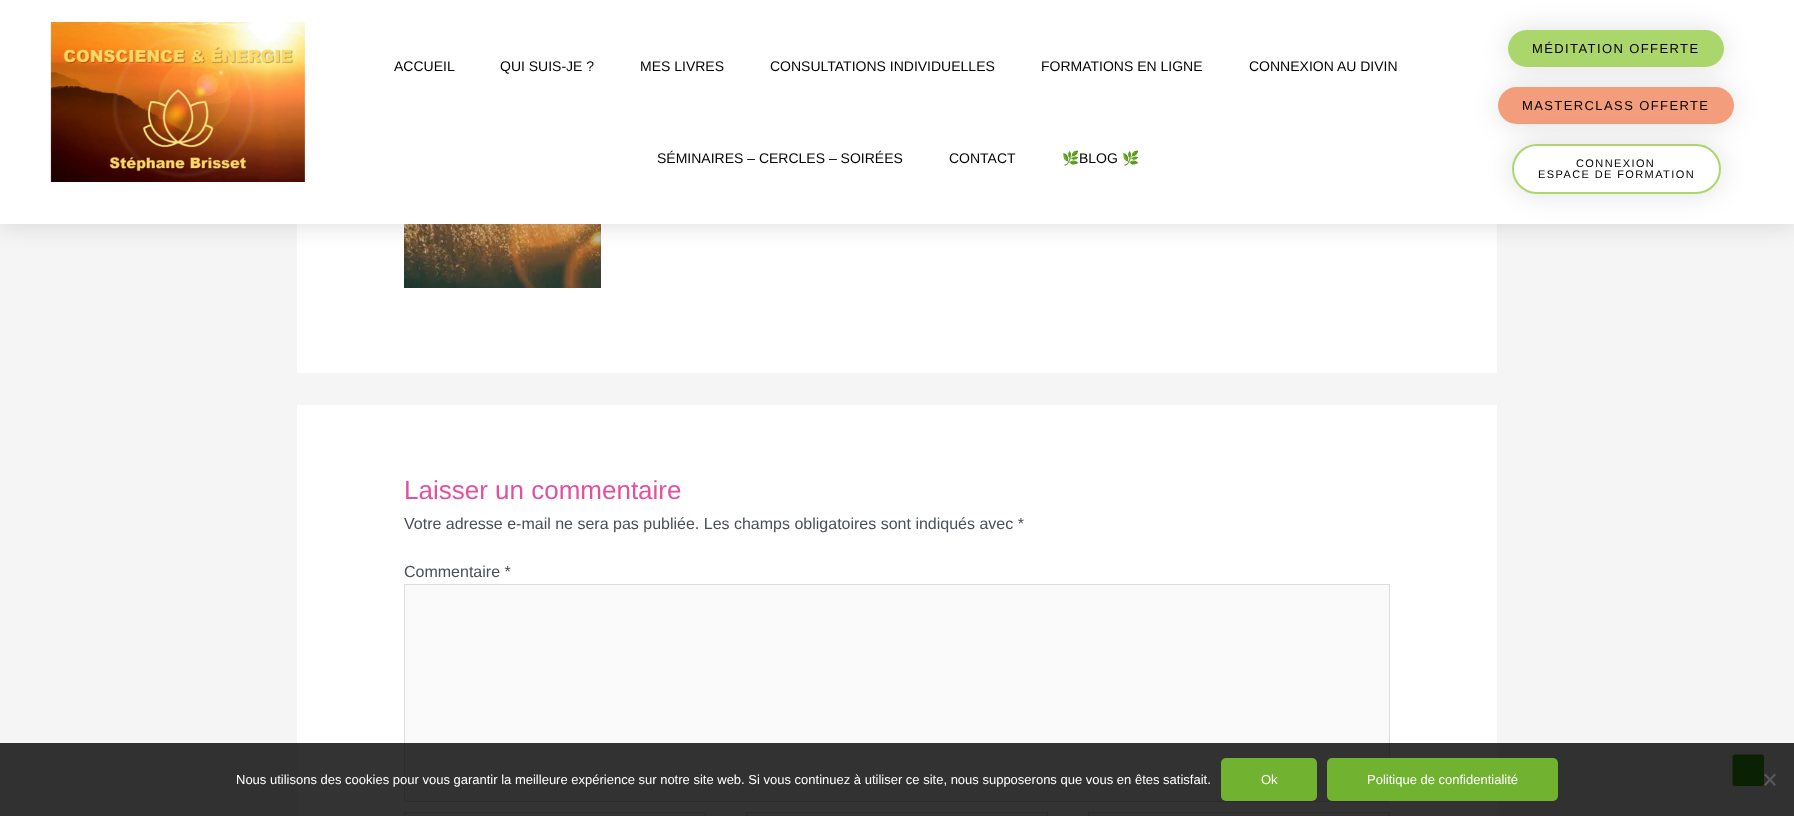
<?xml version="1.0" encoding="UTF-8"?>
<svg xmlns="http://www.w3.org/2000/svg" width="1794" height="816">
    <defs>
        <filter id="blur1" x="-50%" y="-200%" width="200%" height="500%"><feGaussianBlur stdDeviation="12"/></filter>
        <clipPath id="clip1"><path d="M 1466 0 H 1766 V 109 H 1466 Z M 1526.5 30 H 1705.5 C 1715.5 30 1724 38.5 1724 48.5 C 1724 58.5 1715.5 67 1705.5 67 H 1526.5 C 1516.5 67 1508 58.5 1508 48.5 C 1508 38.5 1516.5 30 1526.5 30 Z" clip-rule="evenodd"/></clipPath>
        <filter id="blur2" x="-50%" y="-200%" width="200%" height="500%"><feGaussianBlur stdDeviation="13.5"/></filter>
        <clipPath id="clip2"><path d="M 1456 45 H 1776 V 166 H 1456 Z M 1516.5 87 H 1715.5 C 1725.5 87 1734 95.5 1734 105.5 C 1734 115.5 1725.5 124 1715.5 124 H 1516.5 C 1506.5 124 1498 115.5 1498 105.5 C 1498 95.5 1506.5 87 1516.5 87 Z" clip-rule="evenodd"/></clipPath>
    </defs>
    <rect width="100%" height="100%" fill="#F5F5F5"/>
    <rect x="297" y="224" width="1200" height="149" fill="#FFFFFF"/>
    <image x="404" y="224" width="197" height="64" href="img_02.png"/>
    <rect x="0" y="0" width="1794" height="224" fill="#000000" fill-opacity="0.15" filter="url(#blur1)"/>
    <rect x="0" y="0" width="1794" height="224" fill="#FFFFFF"/>
    <image x="50" y="22" width="255" height="160" href="img_01.png"/>
    <text x="394" y="71" font-family="Liberation Sans" font-size="14" fill="#020101">ACCUEIL</text>
    <text x="500" y="71" font-family="Liberation Sans" font-size="14" fill="#020101">QUI SUIS-JE ?</text>
    <text x="640" y="71" font-family="Liberation Sans" font-size="14" fill="#020101">MES LIVRES</text>
    <text x="770" y="71" font-family="Liberation Sans" font-size="14" fill="#020101">CONSULTATIONS INDIVIDUELLES</text>
    <text x="1041" y="71" font-family="Liberation Sans" font-size="14" fill="#020101">FORMATIONS EN LIGNE</text>
    <text x="1249" y="71" font-family="Liberation Sans" font-size="14" fill="#020101">CONNEXION AU DIVIN</text>
    <text x="657" y="163" font-family="Liberation Sans" font-size="14" fill="#020101">SÉMINAIRES – CERCLES – SOIRÉES</text>
    <text x="949" y="163" font-family="Liberation Sans" font-size="14" fill="#020101">CONTACT</text>
    <text x="1062" y="163" font-family="Noto Color Emoji" font-size="14" fill="#020101">🌿</text>
    <text x="1079" y="163" font-family="Liberation Sans" font-size="14" fill="#020101">BLOG</text>
    <text x="1122" y="163" font-family="Noto Color Emoji" font-size="14" fill="#020101">🌿</text>
    <g clip-path="url(#clip1)">
        <rect x="1508" y="30" width="216" height="37" rx="18.5" fill="#000000" fill-opacity="0.12" filter="url(#blur2)"/>
    </g>
    <rect x="1508" y="30" width="216" height="37" rx="18.5" fill="#86C329" fill-opacity="0.69"/>
    <text x="1532" y="53" font-family="Liberation Sans" font-size="13" letter-spacing="1.4" fill="#020101">MÉDITATION OFFERTE</text>
    <g clip-path="url(#clip2)">
        <rect x="1498" y="87" width="236" height="37" rx="18.5" fill="#000000" fill-opacity="0.12" filter="url(#blur2)"/>
    </g>
    <rect x="1498" y="87" width="236" height="37" rx="18.5" fill="#EF7C52" fill-opacity="0.75"/>
    <text x="1522" y="110" font-family="Liberation Sans" font-size="13" letter-spacing="1.4" fill="#020101">MASTERCLASS OFFERTE</text>
    <rect x="1512" y="144" width="209" height="50" rx="25" fill="#000000" fill-opacity="0.12" filter="url(#blur2)"/>
    <rect x="1512" y="144" width="209" height="50" rx="25" fill="#FFFFFF"/>
    <rect x="1513" y="145" width="207" height="48" rx="24" fill="none" stroke="#86C329" stroke-opacity="0.69" stroke-width="2"/>
    <text x="1576" y="167" font-family="Liberation Sans" font-size="11" letter-spacing="1.4" fill="#020101">CONNEXION</text>
    <text x="1538" y="178" font-family="Liberation Sans" font-size="11" letter-spacing="1.4" fill="#020101">ESPACE DE FORMATION</text>
    <rect x="297" y="405" width="1200" height="411" fill="#FFFFFF"/>
    <text x="404" y="499" font-family="Liberation Sans" font-size="26" fill="#E2519F">Laisser un commentaire</text>
    <text x="404" y="529" font-family="Liberation Sans" font-size="16" fill="#4B4F58">Votre adresse e-mail ne sera pas publiée. Les champs obligatoires sont indiqués avec *</text>
    <text x="404" y="577" font-family="Liberation Sans" font-size="16" fill="#4B4F58">Commentaire *</text>
    <rect x="404.5" y="584.5" width="985" height="217" fill="#FAFAFA" stroke="#DDDDDD"/>
    <rect x="404.5" y="812.5" width="301" height="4" fill="#FAFAFA" stroke="#DDDDDD"/>
    <rect x="746.5" y="812.5" width="301" height="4" fill="#FAFAFA" stroke="#DDDDDD"/>
    <rect x="1088.5" y="812.5" width="301" height="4" fill="#FAFAFA" stroke="#DDDDDD"/>
    <path d="M 1762 786 H 1734.5 C 1733.5 786 1732.5 785 1732.5 784 V 756.5 C 1732.5 755.5 1733.5 754.5 1734.5 754.5 H 1762 C 1763 754.5 1764 755.5 1764 756.5 V 784 C 1764 785 1763 786 1762 786 Z" fill="#3BA712"/>
    <rect x="0" y="743" width="1794" height="73" fill="#000000" fill-opacity="0.8"/>
    <text x="236" y="784" font-family="Liberation Sans" font-size="13" fill="#FFFFFF">Nous utilisons des cookies pour vous garantir la meilleure expérience sur notre site web. Si vous continuez à utiliser ce site, nous supposerons que vous en êtes satisfait.</text>
    <rect x="1221" y="758" width="96" height="43" rx="5" fill="#71B230"/>
    <text x="1261" y="784" font-family="Liberation Sans" font-size="13" fill="#FFFFFF">Ok</text>
    <rect x="1327" y="758" width="231" height="43" rx="5" fill="#71B230"/>
    <text x="1367" y="784" font-family="Liberation Sans" font-size="13" fill="#FFFFFF">Politique de confidentialité</text>
    <path d="M 1774.5 773.5 L 1776 775 L 1765.5 786 L 1764 784.5 Z" fill="#595959"/>
    <path d="M 1764 775 L 1765.5 773.5 L 1776 784.5 L 1774.5 786 Z" fill="#595959"/>
</svg>
